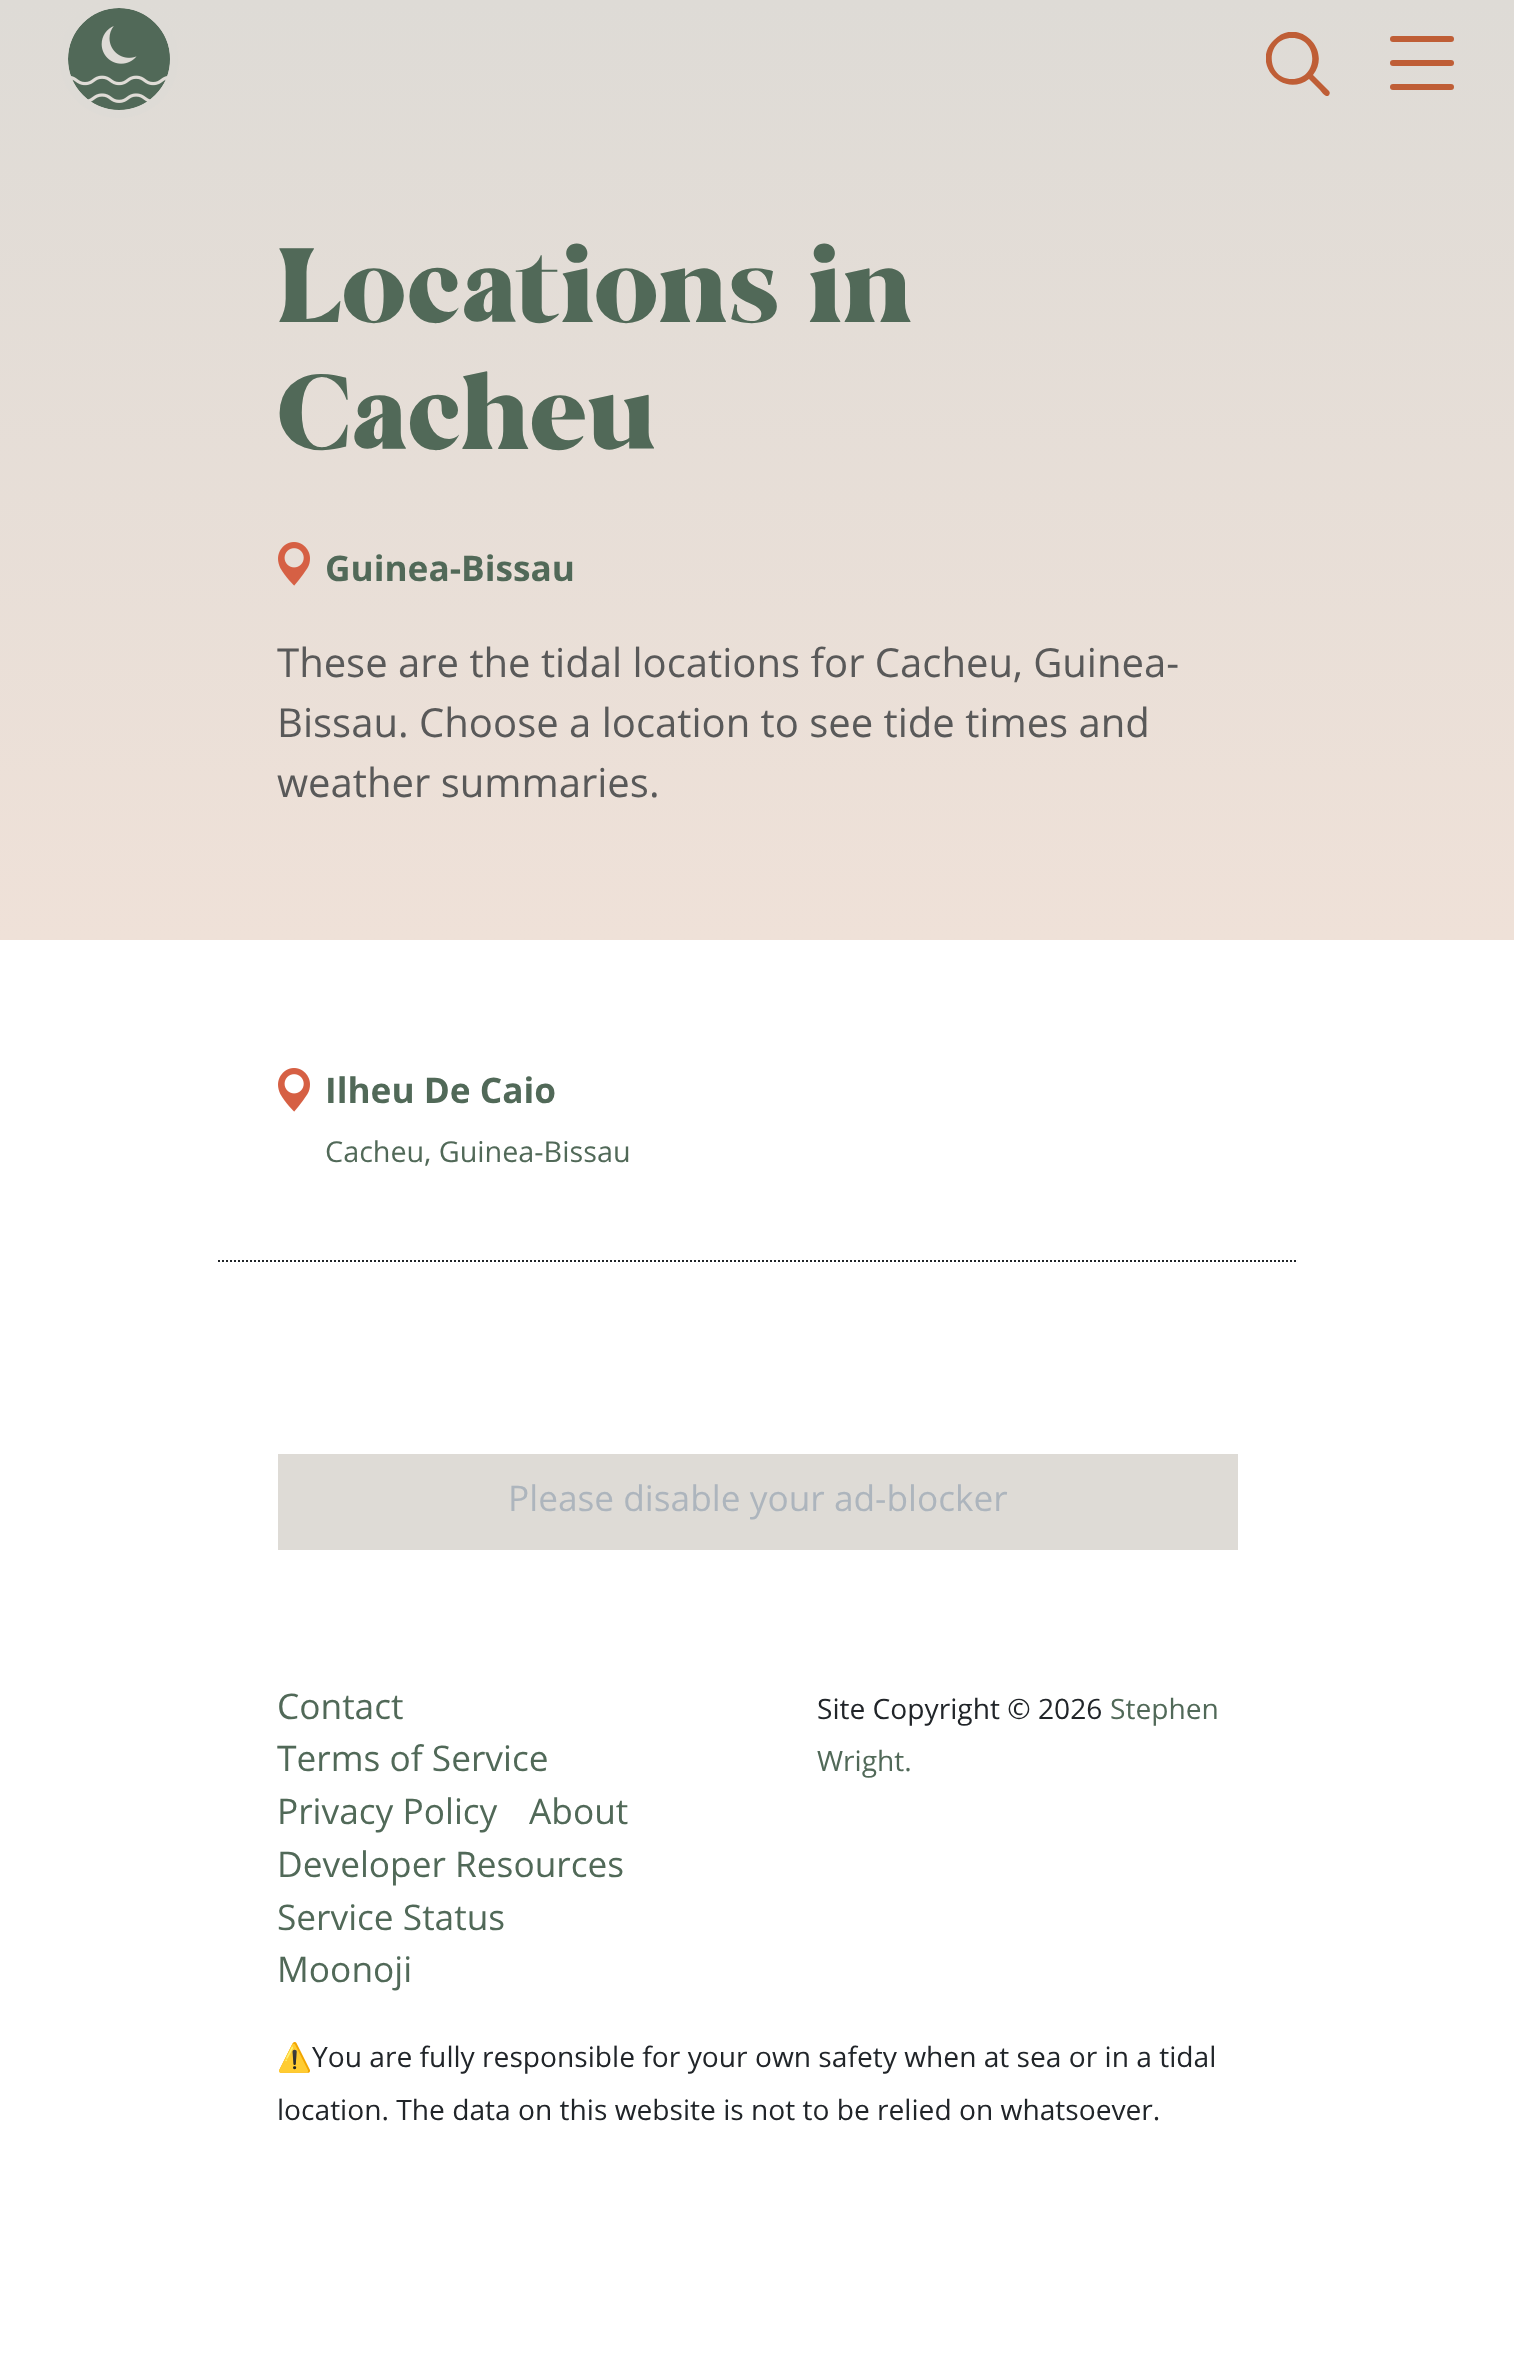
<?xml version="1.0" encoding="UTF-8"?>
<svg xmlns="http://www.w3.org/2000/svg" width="1514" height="2363">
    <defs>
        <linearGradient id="g1" gradientUnits="userSpaceOnUse" x1="757" y1="0" x2="757" y2="940"><stop offset="0" stop-color="#DEDBD6"/><stop offset="1" stop-color="#EFE1D8"/></linearGradient>
        <clipPath id="clip1"><rect x="1266" y="32" width="64" height="64"/></clipPath>
    </defs>
    <rect width="100%" height="100%" fill="#FFFFFF"/>
    <rect x="0" y="0" width="1514" height="940" fill="url(#g1)"/>
    <image x="68" y="8" width="102" height="102" href="img_01.png"/>
    <circle cx="119" cy="59" r="55" fill="none" stroke="#DEDBD6" stroke-width="8"/>
    <g clip-path="url(#clip1)">
        <path d="M 1329 91 L 1313 75 C 1333 49 1297 16 1274 40 C 1250 63 1283 99 1309 79 L 1320 90 C 1321 91 1326 99 1329 95 C 1330 94 1330 92 1329 91 Z M 1292 79 C 1265 79 1265 38 1292 38 C 1319 38 1319 79 1292 79 Z" fill="#BF5E36"/>
    </g>
    <rect x="1390" y="36" width="64" height="6" rx="3" fill="#BF5E36"/>
    <rect x="1390" y="60" width="64" height="6" rx="3" fill="#BF5E36"/>
    <rect x="1390" y="84" width="64" height="6" rx="3" fill="#BF5E36"/>
    <text font-family="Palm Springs" font-size="105.5" fill="#516958">
        <tspan x="277" y="322" word-spacing="-13">Locations in</tspan>
        <tspan x="277" y="449">Cacheu</tspan>
    </text>
    <image x="278" y="542" width="32" height="44" href="img_02.png"/>
    <text x="325" y="581" font-family="Open Sans" font-size="35.25" font-weight="700" fill="#516958">Guinea-Bissau</text>
    <text font-family="Open Sans" font-size="40" fill="#595959">
        <tspan x="277" y="677">These are the tidal locations for Cacheu, Guinea-</tspan>
        <tspan x="277" y="737">Bissau. Choose a location to see tide times and</tspan>
        <tspan x="277" y="797">weather summaries.</tspan>
    </text>
    <path d="M 218 1261 H 1298" fill="none" stroke="#212529" stroke-width="2" stroke-dasharray="2 2"/>
    <image x="278" y="1068" width="32" height="44" href="img_03.png"/>
    <text x="325" y="1103" font-family="Open Sans" font-size="35.25" font-weight="700" fill="#516958">Ilheu De Caio</text>
    <text x="325" y="1162" font-family="Open Sans" font-size="28.75" fill="#516958">Cacheu, Guinea-Bissau</text>
    <rect x="278" y="1454" width="960" height="96" fill="#DEDBD6"/>
    <text x="508" y="1511" font-family="Open Sans" font-size="35.25" fill="#ADB5BD">Please disable your ad-blocker</text>
    <text font-family="Open Sans" font-size="35.25" fill="#516958">
        <tspan x="277" y="1719">Contact</tspan>
        <tspan x="277" y="1771">Terms of Service</tspan>
        <tspan x="277" y="1824">Privacy Policy</tspan>
    </text>
    <text x="529" y="1824" font-family="Open Sans" font-size="35.25" fill="#516958">About</text>
    <text font-family="Open Sans" font-size="35.25" fill="#516958">
        <tspan x="277" y="1877">Developer Resources</tspan>
        <tspan x="277" y="1930">Service Status</tspan>
        <tspan x="277" y="1982">Moonoji</tspan>
    </text>
    <text x="817" y="1719" font-family="Open Sans" font-size="28.15" fill="#212529">Site Copyright © 2026</text>
    <text x="1110" y="1719" font-family="Open Sans" font-size="28.15" fill="#516958">Stephen</text>
    <text x="817" y="1771" font-family="Open Sans" font-size="28.15" fill="#516958">Wright.</text>
    <text x="277" y="2067" font-family="Noto Color Emoji" font-size="28.15" fill="#212529">⚠️</text>
    <text x="312" y="2067" font-family="Open Sans" font-size="28.15" fill="#212529">You are fully responsible for your own safety when at sea or in a tidal</text>
    <text x="277" y="2120" font-family="Open Sans" font-size="28.15" fill="#212529">location. The data on this website is not to be relied on whatsoever.</text>
</svg>
